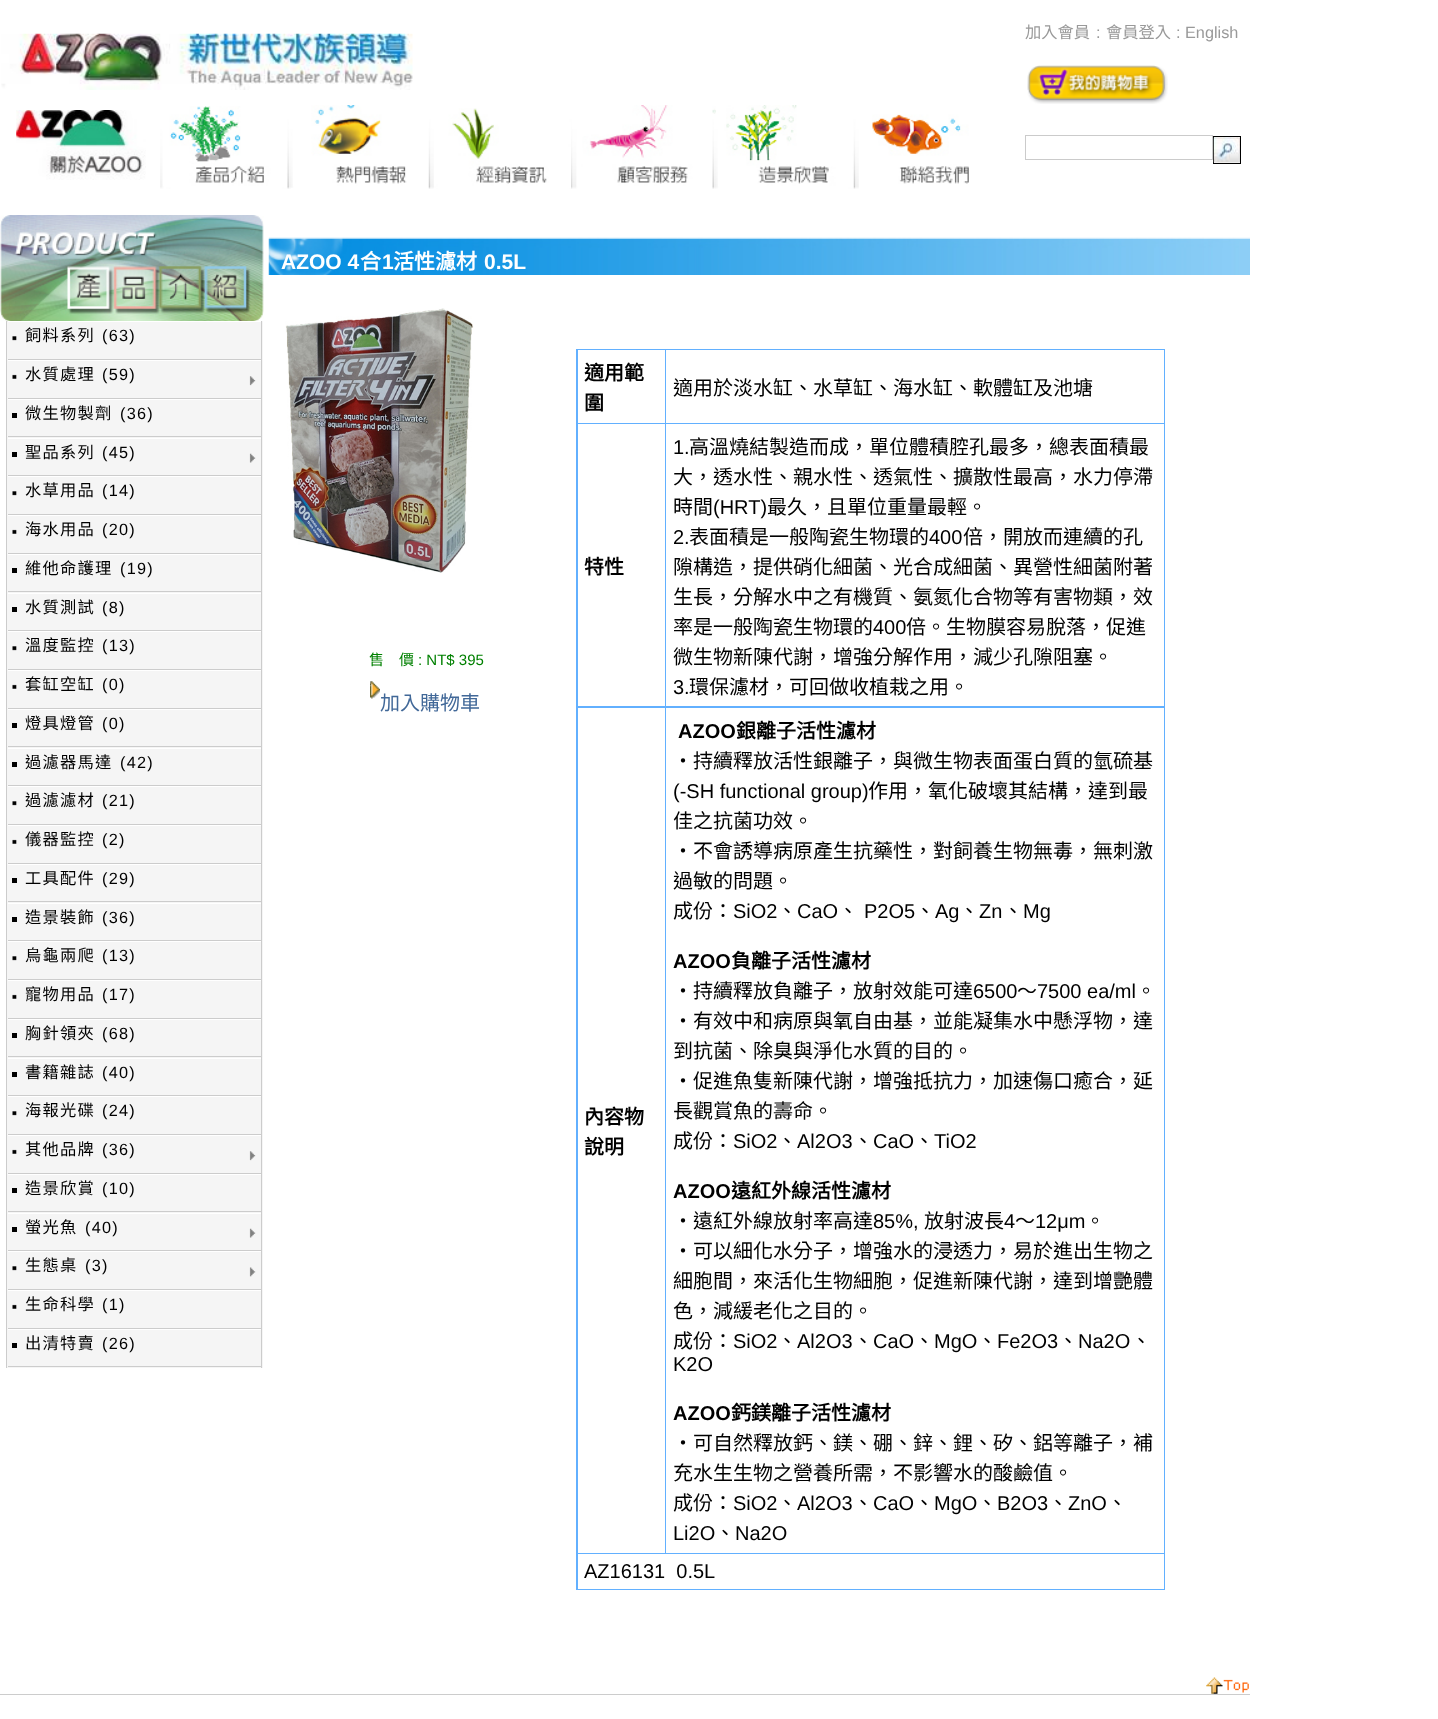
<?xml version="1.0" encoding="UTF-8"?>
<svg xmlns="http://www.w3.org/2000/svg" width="1438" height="1719">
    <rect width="100%" height="100%" fill="#FFFFFF"/>
    <image x="1" y="33" width="412" height="57" href="img_01.png"/>
    <text x="1025" y="38" font-family="Noto Sans CJK TC" font-size="16.25" fill="#999999">加入會員</text>
    <text x="1096" y="38" font-family="Liberation Sans" font-size="16.25" fill="#999999">:</text>
    <text x="1106" y="38" font-family="Noto Sans CJK TC" font-size="16.25" fill="#999999">會員登入</text>
    <text x="1176" y="38" font-family="Liberation Sans" font-size="16.25" fill="#999999">: English</text>
    <image x="1027" y="65" width="141" height="39" href="img_02.png"/>
    <image x="16" y="110" width="130" height="70" href="img_03.png"/>
    <image x="160" y="106" width="131" height="83" href="img_04.png"/>
    <image x="291" y="105" width="116" height="83" href="img_05.png"/>
    <image x="428" y="108" width="145" height="81" href="img_06.png"/>
    <image x="572" y="105" width="145" height="84" href="img_07.png"/>
    <image x="716" y="105" width="143" height="84" href="img_08.png"/>
    <image x="872" y="114" width="97" height="70" href="img_09.png"/>
    <rect x="1025.5" y="135.5" width="187" height="24" fill="none" stroke="#CBCBCB"/>
    <rect x="1213.5" y="136.5" width="27" height="27" fill="none" stroke="#000000"/>
    <image x="1213" y="137" width="27" height="26" href="img_10.png"/>
    <rect x="7" y="321" width="256" height="1047" fill="#F5F5F5"/>
    <image x="0" y="215" width="264" height="107" href="img_11.png"/>
    <rect x="261" y="321" width="1" height="1047" fill="#CCCCCC"/>
    <rect x="6" y="321" width="1" height="1047" fill="#CCCCCC"/>
    <rect x="8" y="321" width="253" height="1" fill="#FFFFFF"/>
    <rect x="8" y="359" width="253" height="1" fill="#CCCCCC"/>
    <image x="12" y="336" width="5" height="5" href="img_12.png"/>
    <text x="25" y="341" font-family="Noto Sans CJK TC" font-size="16.25" letter-spacing="1.25" fill="#000000">飼料系列</text>
    <text x="102" y="341" font-family="Liberation Sans" font-size="16.25" letter-spacing="1.25" fill="#000000">(63)</text>
    <rect x="8" y="360" width="253" height="1" fill="#FFFFFF"/>
    <rect x="8" y="398" width="253" height="1" fill="#CCCCCC"/>
    <image x="12" y="374" width="5" height="5" href="img_13.png"/>
    <text x="25" y="380" font-family="Noto Sans CJK TC" font-size="16.25" letter-spacing="1.25" fill="#000000">水質處理</text>
    <text x="102" y="380" font-family="Liberation Sans" font-size="16.25" letter-spacing="1.25" fill="#000000">(59)</text>
    <image x="249" y="376" width="7" height="10" href="img_14.png"/>
    <rect x="8" y="399" width="253" height="1" fill="#FFFFFF"/>
    <rect x="8" y="436" width="253" height="1" fill="#CCCCCC"/>
    <rect x="12" y="413" width="5" height="5" fill="#000000"/>
    <text x="25" y="419" font-family="Noto Sans CJK TC" font-size="16.25" letter-spacing="1.25" fill="#000000">微生物製劑</text>
    <text x="120" y="419" font-family="Liberation Sans" font-size="16.25" letter-spacing="1.25" fill="#000000">(36)</text>
    <rect x="8" y="438" width="253" height="1" fill="#FFFFFF"/>
    <rect x="8" y="475" width="253" height="1" fill="#CCCCCC"/>
    <rect x="12" y="452" width="5" height="5" fill="#000000"/>
    <text x="25" y="458" font-family="Noto Sans CJK TC" font-size="16.25" letter-spacing="1.25" fill="#000000">聖品系列</text>
    <text x="102" y="458" font-family="Liberation Sans" font-size="16.25" letter-spacing="1.25" fill="#000000">(45)</text>
    <image x="249" y="453" width="7" height="10" href="img_15.png"/>
    <rect x="8" y="476" width="253" height="1" fill="#FFFFFF"/>
    <rect x="8" y="514" width="253" height="1" fill="#CCCCCC"/>
    <image x="12" y="491" width="5" height="5" href="img_12.png"/>
    <text x="25" y="496" font-family="Noto Sans CJK TC" font-size="16.25" letter-spacing="1.25" fill="#000000">水草用品</text>
    <text x="102" y="496" font-family="Liberation Sans" font-size="16.25" letter-spacing="1.25" fill="#000000">(14)</text>
    <rect x="8" y="515" width="253" height="1" fill="#FFFFFF"/>
    <rect x="8" y="553" width="253" height="1" fill="#CCCCCC"/>
    <image x="12" y="529" width="5" height="5" href="img_13.png"/>
    <text x="25" y="535" font-family="Noto Sans CJK TC" font-size="16.25" letter-spacing="1.25" fill="#000000">海水用品</text>
    <text x="102" y="535" font-family="Liberation Sans" font-size="16.25" letter-spacing="1.25" fill="#000000">(20)</text>
    <rect x="8" y="554" width="253" height="1" fill="#FFFFFF"/>
    <rect x="8" y="591" width="253" height="1" fill="#CCCCCC"/>
    <rect x="12" y="568" width="5" height="5" fill="#000000"/>
    <text x="25" y="574" font-family="Noto Sans CJK TC" font-size="16.25" letter-spacing="1.25" fill="#000000">維他命護理</text>
    <text x="120" y="574" font-family="Liberation Sans" font-size="16.25" letter-spacing="1.25" fill="#000000">(19)</text>
    <rect x="8" y="593" width="253" height="1" fill="#FFFFFF"/>
    <rect x="8" y="630" width="253" height="1" fill="#CCCCCC"/>
    <rect x="12" y="607" width="5" height="5" fill="#000000"/>
    <text x="25" y="613" font-family="Noto Sans CJK TC" font-size="16.25" letter-spacing="1.25" fill="#000000">水質測試</text>
    <text x="102" y="613" font-family="Liberation Sans" font-size="16.25" letter-spacing="1.25" fill="#000000">(8)</text>
    <rect x="8" y="631" width="253" height="1" fill="#FFFFFF"/>
    <rect x="8" y="669" width="253" height="1" fill="#CCCCCC"/>
    <image x="12" y="646" width="5" height="5" href="img_12.png"/>
    <text x="25" y="651" font-family="Noto Sans CJK TC" font-size="16.25" letter-spacing="1.25" fill="#000000">溫度監控</text>
    <text x="102" y="651" font-family="Liberation Sans" font-size="16.25" letter-spacing="1.25" fill="#000000">(13)</text>
    <rect x="8" y="670" width="253" height="1" fill="#FFFFFF"/>
    <rect x="8" y="708" width="253" height="1" fill="#CCCCCC"/>
    <image x="12" y="684" width="5" height="5" href="img_13.png"/>
    <text x="25" y="690" font-family="Noto Sans CJK TC" font-size="16.25" letter-spacing="1.25" fill="#000000">套缸空缸</text>
    <text x="102" y="690" font-family="Liberation Sans" font-size="16.25" letter-spacing="1.25" fill="#000000">(0)</text>
    <rect x="8" y="709" width="253" height="1" fill="#FFFFFF"/>
    <rect x="8" y="746" width="253" height="1" fill="#CCCCCC"/>
    <rect x="12" y="723" width="5" height="5" fill="#000000"/>
    <text x="25" y="729" font-family="Noto Sans CJK TC" font-size="16.25" letter-spacing="1.25" fill="#000000">燈具燈管</text>
    <text x="102" y="729" font-family="Liberation Sans" font-size="16.25" letter-spacing="1.25" fill="#000000">(0)</text>
    <rect x="8" y="748" width="253" height="1" fill="#FFFFFF"/>
    <rect x="8" y="785" width="253" height="1" fill="#CCCCCC"/>
    <rect x="12" y="762" width="5" height="5" fill="#000000"/>
    <text x="25" y="768" font-family="Noto Sans CJK TC" font-size="16.25" letter-spacing="1.25" fill="#000000">過濾器馬達</text>
    <text x="120" y="768" font-family="Liberation Sans" font-size="16.25" letter-spacing="1.25" fill="#000000">(42)</text>
    <rect x="8" y="786" width="253" height="1" fill="#FFFFFF"/>
    <rect x="8" y="824" width="253" height="1" fill="#CCCCCC"/>
    <image x="12" y="801" width="5" height="5" href="img_12.png"/>
    <text x="25" y="806" font-family="Noto Sans CJK TC" font-size="16.25" letter-spacing="1.25" fill="#000000">過濾濾材</text>
    <text x="102" y="806" font-family="Liberation Sans" font-size="16.25" letter-spacing="1.25" fill="#000000">(21)</text>
    <rect x="8" y="825" width="253" height="1" fill="#FFFFFF"/>
    <rect x="8" y="863" width="253" height="1" fill="#CCCCCC"/>
    <image x="12" y="839" width="5" height="5" href="img_13.png"/>
    <text x="25" y="845" font-family="Noto Sans CJK TC" font-size="16.25" letter-spacing="1.25" fill="#000000">儀器監控</text>
    <text x="102" y="845" font-family="Liberation Sans" font-size="16.25" letter-spacing="1.25" fill="#000000">(2)</text>
    <rect x="8" y="864" width="253" height="1" fill="#FFFFFF"/>
    <rect x="8" y="901" width="253" height="1" fill="#CCCCCC"/>
    <rect x="12" y="878" width="5" height="5" fill="#000000"/>
    <text x="25" y="884" font-family="Noto Sans CJK TC" font-size="16.25" letter-spacing="1.25" fill="#000000">工具配件</text>
    <text x="102" y="884" font-family="Liberation Sans" font-size="16.25" letter-spacing="1.25" fill="#000000">(29)</text>
    <rect x="8" y="903" width="253" height="1" fill="#FFFFFF"/>
    <rect x="8" y="940" width="253" height="1" fill="#CCCCCC"/>
    <rect x="12" y="917" width="5" height="5" fill="#000000"/>
    <text x="25" y="923" font-family="Noto Sans CJK TC" font-size="16.25" letter-spacing="1.25" fill="#000000">造景裝飾</text>
    <text x="102" y="923" font-family="Liberation Sans" font-size="16.25" letter-spacing="1.25" fill="#000000">(36)</text>
    <rect x="8" y="941" width="253" height="1" fill="#FFFFFF"/>
    <rect x="8" y="979" width="253" height="1" fill="#CCCCCC"/>
    <image x="12" y="956" width="5" height="5" href="img_12.png"/>
    <text x="25" y="961" font-family="Noto Sans CJK TC" font-size="16.25" letter-spacing="1.25" fill="#000000">烏龜兩爬</text>
    <text x="102" y="961" font-family="Liberation Sans" font-size="16.25" letter-spacing="1.25" fill="#000000">(13)</text>
    <rect x="8" y="980" width="253" height="1" fill="#FFFFFF"/>
    <rect x="8" y="1018" width="253" height="1" fill="#CCCCCC"/>
    <image x="12" y="994" width="5" height="5" href="img_13.png"/>
    <text x="25" y="1000" font-family="Noto Sans CJK TC" font-size="16.25" letter-spacing="1.25" fill="#000000">寵物用品</text>
    <text x="102" y="1000" font-family="Liberation Sans" font-size="16.25" letter-spacing="1.25" fill="#000000">(17)</text>
    <rect x="8" y="1019" width="253" height="1" fill="#FFFFFF"/>
    <rect x="8" y="1056" width="253" height="1" fill="#CCCCCC"/>
    <rect x="12" y="1033" width="5" height="5" fill="#000000"/>
    <text x="25" y="1039" font-family="Noto Sans CJK TC" font-size="16.25" letter-spacing="1.25" fill="#000000">胸針領夾</text>
    <text x="102" y="1039" font-family="Liberation Sans" font-size="16.25" letter-spacing="1.25" fill="#000000">(68)</text>
    <rect x="8" y="1058" width="253" height="1" fill="#FFFFFF"/>
    <rect x="8" y="1095" width="253" height="1" fill="#CCCCCC"/>
    <rect x="12" y="1072" width="5" height="5" fill="#000000"/>
    <text x="25" y="1078" font-family="Noto Sans CJK TC" font-size="16.25" letter-spacing="1.25" fill="#000000">書籍雜誌</text>
    <text x="102" y="1078" font-family="Liberation Sans" font-size="16.25" letter-spacing="1.25" fill="#000000">(40)</text>
    <rect x="8" y="1096" width="253" height="1" fill="#FFFFFF"/>
    <rect x="8" y="1134" width="253" height="1" fill="#CCCCCC"/>
    <image x="12" y="1111" width="5" height="5" href="img_12.png"/>
    <text x="25" y="1116" font-family="Noto Sans CJK TC" font-size="16.25" letter-spacing="1.25" fill="#000000">海報光碟</text>
    <text x="102" y="1116" font-family="Liberation Sans" font-size="16.25" letter-spacing="1.25" fill="#000000">(24)</text>
    <rect x="8" y="1135" width="253" height="1" fill="#FFFFFF"/>
    <rect x="8" y="1173" width="253" height="1" fill="#CCCCCC"/>
    <image x="12" y="1149" width="5" height="5" href="img_13.png"/>
    <text x="25" y="1155" font-family="Noto Sans CJK TC" font-size="16.25" letter-spacing="1.25" fill="#000000">其他品牌</text>
    <text x="102" y="1155" font-family="Liberation Sans" font-size="16.25" letter-spacing="1.25" fill="#000000">(36)</text>
    <image x="249" y="1151" width="7" height="10" href="img_14.png"/>
    <rect x="8" y="1174" width="253" height="1" fill="#FFFFFF"/>
    <rect x="8" y="1211" width="253" height="1" fill="#CCCCCC"/>
    <rect x="12" y="1188" width="5" height="5" fill="#000000"/>
    <text x="25" y="1194" font-family="Noto Sans CJK TC" font-size="16.25" letter-spacing="1.25" fill="#000000">造景欣賞</text>
    <text x="102" y="1194" font-family="Liberation Sans" font-size="16.25" letter-spacing="1.25" fill="#000000">(10)</text>
    <rect x="8" y="1213" width="253" height="1" fill="#FFFFFF"/>
    <rect x="8" y="1250" width="253" height="1" fill="#CCCCCC"/>
    <rect x="12" y="1227" width="5" height="5" fill="#000000"/>
    <text x="25" y="1233" font-family="Noto Sans CJK TC" font-size="16.25" letter-spacing="1.25" fill="#000000">螢光魚</text>
    <text x="85" y="1233" font-family="Liberation Sans" font-size="16.25" letter-spacing="1.25" fill="#000000">(40)</text>
    <image x="249" y="1228" width="7" height="10" href="img_15.png"/>
    <rect x="8" y="1251" width="253" height="1" fill="#FFFFFF"/>
    <rect x="8" y="1289" width="253" height="1" fill="#CCCCCC"/>
    <image x="12" y="1266" width="5" height="5" href="img_12.png"/>
    <text x="25" y="1271" font-family="Noto Sans CJK TC" font-size="16.25" letter-spacing="1.25" fill="#000000">生態桌</text>
    <text x="85" y="1271" font-family="Liberation Sans" font-size="16.25" letter-spacing="1.25" fill="#000000">(3)</text>
    <image x="249" y="1267" width="7" height="10" href="img_16.png"/>
    <rect x="8" y="1290" width="253" height="1" fill="#FFFFFF"/>
    <rect x="8" y="1328" width="253" height="1" fill="#CCCCCC"/>
    <image x="12" y="1304" width="5" height="5" href="img_13.png"/>
    <text x="25" y="1310" font-family="Noto Sans CJK TC" font-size="16.25" letter-spacing="1.25" fill="#000000">生命科學</text>
    <text x="102" y="1310" font-family="Liberation Sans" font-size="16.25" letter-spacing="1.25" fill="#000000">(1)</text>
    <rect x="8" y="1329" width="253" height="1" fill="#FFFFFF"/>
    <rect x="8" y="1366" width="253" height="1" fill="#CCCCCC"/>
    <rect x="12" y="1343" width="5" height="5" fill="#000000"/>
    <text x="25" y="1349" font-family="Noto Sans CJK TC" font-size="16.25" letter-spacing="1.25" fill="#000000">出清特賣</text>
    <text x="102" y="1349" font-family="Liberation Sans" font-size="16.25" letter-spacing="1.25" fill="#000000">(26)</text>
    <image x="268" y="237" width="982" height="38" href="img_17.png"/>
    <text x="281" y="269" font-family="Liberation Sans" font-size="21" font-weight="700" fill="#FFFFFF">AZOO 4</text>
    <text x="360" y="269" font-family="Noto Sans CJK TC" font-size="21" font-weight="700" fill="#FFFFFF">合</text>
    <text x="382" y="269" font-family="Liberation Sans" font-size="21" font-weight="700" fill="#FFFFFF">1</text>
    <text x="393" y="269" font-family="Noto Sans CJK TC" font-size="21" font-weight="700" fill="#FFFFFF">活性濾材</text>
    <text x="484" y="269" font-family="Liberation Sans" font-size="21" font-weight="700" fill="#FFFFFF">0.5L</text>
    <image x="285" y="308" width="189" height="265" href="img_18.png"/>
    <text x="369" y="665" font-family="Noto Sans CJK TC" font-size="15" fill="#008000">售　價</text>
    <text x="418" y="665" font-family="Liberation Sans" font-size="15" fill="#008000">: NT$ 395</text>
    <image x="370" y="681" width="10" height="18" href="img_19.png"/>
    <text x="380" y="710" font-family="Noto Sans CJK TC" font-size="20" fill="#416898">加入購物車</text>
    <rect x="576" y="349" width="589" height="1241" fill="#62B0FF"/>
    <rect x="578" y="350" width="87" height="73" fill="#FFFFFF"/>
    <text font-family="Noto Sans CJK TC" font-size="20" font-weight="700" fill="#000000">
        <tspan x="584" y="380">適用範</tspan>
        <tspan x="584" y="410">圍</tspan>
    </text>
    <rect x="666" y="350" width="498" height="73" fill="#FFFFFF"/>
    <text x="673" y="395" font-family="Noto Sans CJK TC" font-size="20" fill="#000000">適用於淡水缸、水草缸、海水缸、軟體缸及池塘</text>
    <rect x="578" y="424" width="87" height="282" fill="#FFFFFF"/>
    <text x="584" y="574" font-family="Noto Sans CJK TC" font-size="20" font-weight="700" fill="#000000">特性</text>
    <rect x="666" y="424" width="498" height="282" fill="#FFFFFF"/>
    <text x="673" y="454" font-family="Liberation Sans" font-size="20" fill="#000000">1.</text>
    <text x="689" y="454" font-family="Noto Sans CJK TC" font-size="20" fill="#000000">高溫燒結製造而成，單位體積腔孔最多，總表面積最</text>
    <text font-family="Noto Sans CJK TC" font-size="20" fill="#000000">
        <tspan x="673" y="484">大，透水性、親水性、透氣性、擴散性最高，水力停滯</tspan>
        <tspan x="673" y="514">時間</tspan>
    </text>
    <text x="713" y="514" font-family="Liberation Sans" font-size="20" fill="#000000">(HRT)</text>
    <text x="767" y="514" font-family="Noto Sans CJK TC" font-size="20" fill="#000000">最久，且單位重量最輕。</text>
    <text x="673" y="544" font-family="Liberation Sans" font-size="20" fill="#000000">2.</text>
    <text x="689" y="544" font-family="Noto Sans CJK TC" font-size="20" fill="#000000">表面積是一般陶瓷生物環的</text>
    <text x="929" y="544" font-family="Liberation Sans" font-size="20" fill="#000000">400</text>
    <text x="963" y="544" font-family="Noto Sans CJK TC" font-size="20" fill="#000000">倍，開放而連續的孔</text>
    <text font-family="Noto Sans CJK TC" font-size="20" fill="#000000">
        <tspan x="673" y="574">隙構造，提供硝化細菌、光合成細菌、異營性細菌附著</tspan>
        <tspan x="673" y="604">生長，分解水中之有機質、氨氮化合物等有害物類，效</tspan>
        <tspan x="673" y="634">率是一般陶瓷生物環的</tspan>
    </text>
    <text x="873" y="634" font-family="Liberation Sans" font-size="20" fill="#000000">400</text>
    <text x="906" y="634" font-family="Noto Sans CJK TC" font-size="20" fill="#000000">倍。生物膜容易脫落，促進</text>
    <text x="673" y="664" font-family="Noto Sans CJK TC" font-size="20" fill="#000000">微生物新陳代謝，增強分解作用，減少孔隙阻塞。</text>
    <text x="673" y="694" font-family="Liberation Sans" font-size="20" fill="#000000">3.</text>
    <text x="689" y="694" font-family="Noto Sans CJK TC" font-size="20" fill="#000000">環保濾材，可回做收植栽之用。</text>
    <rect x="578" y="708" width="87" height="845" fill="#FFFFFF"/>
    <text font-family="Noto Sans CJK TC" font-size="20" font-weight="700" fill="#000000">
        <tspan x="584" y="1124">內容物</tspan>
        <tspan x="584" y="1154">說明</tspan>
    </text>
    <rect x="666" y="708" width="498" height="845" fill="#FFFFFF"/>
    <text x="678" y="738" font-family="Liberation Sans" font-size="20" font-weight="700" fill="#000000">AZOO</text>
    <text x="736" y="738" font-family="Noto Sans CJK TC" font-size="20" font-weight="700" fill="#000000">銀離子活性濾材</text>
    <text x="673" y="768" font-family="Noto Sans CJK TC" font-size="20" fill="#000000">‧持續釋放活性銀離子，與微生物表面蛋白質的氫硫基</text>
    <text x="673" y="798" font-family="Liberation Sans" font-size="20" fill="#000000">(-SH functional group)</text>
    <text x="868" y="798" font-family="Noto Sans CJK TC" font-size="20" fill="#000000">作用，氧化破壞其結構，達到最</text>
    <text font-family="Noto Sans CJK TC" font-size="20" fill="#000000">
        <tspan x="673" y="828">佳之抗菌功效。</tspan>
        <tspan x="673" y="858">‧不會誘導病原產生抗藥性，對飼養生物無毒，無刺激</tspan>
        <tspan x="673" y="888">過敏的問題。</tspan>
        <tspan x="673" y="918">成份：</tspan>
    </text>
    <text x="733" y="918" font-family="Liberation Sans" font-size="20" fill="#000000">SiO2</text>
    <text x="777" y="918" font-family="Noto Sans CJK TC" font-size="20" fill="#000000">、</text>
    <text x="797" y="918" font-family="Liberation Sans" font-size="20" fill="#000000">CaO</text>
    <text x="838" y="918" font-family="Noto Sans CJK TC" font-size="20" fill="#000000">、</text>
    <text x="864" y="918" font-family="Liberation Sans" font-size="20" fill="#000000">P2O5</text>
    <text x="915" y="918" font-family="Noto Sans CJK TC" font-size="20" fill="#000000">、</text>
    <text x="935" y="918" font-family="Liberation Sans" font-size="20" fill="#000000">Ag</text>
    <text x="959" y="918" font-family="Noto Sans CJK TC" font-size="20" fill="#000000">、</text>
    <text x="979" y="918" font-family="Liberation Sans" font-size="20" fill="#000000">Zn</text>
    <text x="1003" y="918" font-family="Noto Sans CJK TC" font-size="20" fill="#000000">、</text>
    <text x="1023" y="918" font-family="Liberation Sans" font-size="20" fill="#000000">Mg</text>
    <text x="673" y="968" font-family="Liberation Sans" font-size="20" font-weight="700" fill="#000000">AZOO</text>
    <text x="731" y="968" font-family="Noto Sans CJK TC" font-size="20" font-weight="700" fill="#000000">負離子活性濾材</text>
    <text x="673" y="998" font-family="Noto Sans CJK TC" font-size="20" fill="#000000">‧持續釋放負離子，放射效能可達</text>
    <text x="973" y="998" font-family="Liberation Sans" font-size="20" fill="#000000">6500</text>
    <text x="1017" y="998" font-family="Noto Sans CJK TC" font-size="20" fill="#000000">～</text>
    <text x="1037" y="998" font-family="Liberation Sans" font-size="20" fill="#000000">7500 ea/ml</text>
    <text x="1136" y="998" font-family="Noto Sans CJK TC" font-size="20" fill="#000000">。</text>
    <text font-family="Noto Sans CJK TC" font-size="20" fill="#000000">
        <tspan x="673" y="1028">‧有效中和病原與氧自由基，並能凝集水中懸浮物，達</tspan>
        <tspan x="673" y="1058">到抗菌、除臭與淨化水質的目的。</tspan>
        <tspan x="673" y="1088">‧促進魚隻新陳代謝，增強抵抗力，加速傷口癒合，延</tspan>
        <tspan x="673" y="1118">長觀賞魚的壽命。</tspan>
        <tspan x="673" y="1148">成份：</tspan>
    </text>
    <text x="733" y="1148" font-family="Liberation Sans" font-size="20" fill="#000000">SiO2</text>
    <text x="777" y="1148" font-family="Noto Sans CJK TC" font-size="20" fill="#000000">、</text>
    <text x="797" y="1148" font-family="Liberation Sans" font-size="20" fill="#000000">Al2O3</text>
    <text x="853" y="1148" font-family="Noto Sans CJK TC" font-size="20" fill="#000000">、</text>
    <text x="873" y="1148" font-family="Liberation Sans" font-size="20" fill="#000000">CaO</text>
    <text x="914" y="1148" font-family="Noto Sans CJK TC" font-size="20" fill="#000000">、</text>
    <text x="934" y="1148" font-family="Liberation Sans" font-size="20" fill="#000000">TiO2</text>
    <text x="673" y="1198" font-family="Liberation Sans" font-size="20" font-weight="700" fill="#000000">AZOO</text>
    <text x="731" y="1198" font-family="Noto Sans CJK TC" font-size="20" font-weight="700" fill="#000000">遠紅外線活性濾材</text>
    <text x="673" y="1228" font-family="Noto Sans CJK TC" font-size="20" fill="#000000">‧遠紅外線放射率高達</text>
    <text x="873" y="1228" font-family="Liberation Sans" font-size="20" fill="#000000">85%,</text>
    <text x="924" y="1228" font-family="Noto Sans CJK TC" font-size="20" fill="#000000">放射波長</text>
    <text x="1004" y="1228" font-family="Liberation Sans" font-size="20" fill="#000000">4</text>
    <text x="1015" y="1228" font-family="Noto Sans CJK TC" font-size="20" fill="#000000">～</text>
    <text x="1035" y="1228" font-family="Liberation Sans" font-size="20" fill="#000000">12μm</text>
    <text x="1085" y="1228" font-family="Noto Sans CJK TC" font-size="20" fill="#000000">。</text>
    <text font-family="Noto Sans CJK TC" font-size="20" fill="#000000">
        <tspan x="673" y="1258">‧可以細化水分子，增強水的浸透力，易於進出生物之</tspan>
        <tspan x="673" y="1288">細胞間，來活化生物細胞，促進新陳代謝，達到增艷體</tspan>
        <tspan x="673" y="1318">色，減緩老化之目的。</tspan>
        <tspan x="673" y="1348">成份：</tspan>
    </text>
    <text x="733" y="1348" font-family="Liberation Sans" font-size="20" fill="#000000">SiO2</text>
    <text x="777" y="1348" font-family="Noto Sans CJK TC" font-size="20" fill="#000000">、</text>
    <text x="797" y="1348" font-family="Liberation Sans" font-size="20" fill="#000000">Al2O3</text>
    <text x="853" y="1348" font-family="Noto Sans CJK TC" font-size="20" fill="#000000">、</text>
    <text x="873" y="1348" font-family="Liberation Sans" font-size="20" fill="#000000">CaO</text>
    <text x="914" y="1348" font-family="Noto Sans CJK TC" font-size="20" fill="#000000">、</text>
    <text x="934" y="1348" font-family="Liberation Sans" font-size="20" fill="#000000">MgO</text>
    <text x="977" y="1348" font-family="Noto Sans CJK TC" font-size="20" fill="#000000">、</text>
    <text x="997" y="1348" font-family="Liberation Sans" font-size="20" fill="#000000">Fe2O3</text>
    <text x="1058" y="1348" font-family="Noto Sans CJK TC" font-size="20" fill="#000000">、</text>
    <text x="1078" y="1348" font-family="Liberation Sans" font-size="20" fill="#000000">Na2O</text>
    <text x="1131" y="1348" font-family="Noto Sans CJK TC" font-size="20" fill="#000000">、</text>
    <text x="673" y="1371" font-family="Liberation Sans" font-size="20" fill="#000000">K2O</text>
    <text x="673" y="1420" font-family="Liberation Sans" font-size="20" font-weight="700" fill="#000000">AZOO</text>
    <text x="731" y="1420" font-family="Noto Sans CJK TC" font-size="20" font-weight="700" fill="#000000">鈣鎂離子活性濾材</text>
    <text font-family="Noto Sans CJK TC" font-size="20" fill="#000000">
        <tspan x="673" y="1450">‧可自然釋放鈣、鎂、硼、鋅、鋰、矽、鋁等離子，補</tspan>
        <tspan x="673" y="1480">充水生生物之營養所需，不影響水的酸鹼值。</tspan>
        <tspan x="673" y="1510">成份：</tspan>
    </text>
    <text x="733" y="1510" font-family="Liberation Sans" font-size="20" fill="#000000">SiO2</text>
    <text x="777" y="1510" font-family="Noto Sans CJK TC" font-size="20" fill="#000000">、</text>
    <text x="797" y="1510" font-family="Liberation Sans" font-size="20" fill="#000000">Al2O3</text>
    <text x="853" y="1510" font-family="Noto Sans CJK TC" font-size="20" fill="#000000">、</text>
    <text x="873" y="1510" font-family="Liberation Sans" font-size="20" fill="#000000">CaO</text>
    <text x="914" y="1510" font-family="Noto Sans CJK TC" font-size="20" fill="#000000">、</text>
    <text x="934" y="1510" font-family="Liberation Sans" font-size="20" fill="#000000">MgO</text>
    <text x="977" y="1510" font-family="Noto Sans CJK TC" font-size="20" fill="#000000">、</text>
    <text x="997" y="1510" font-family="Liberation Sans" font-size="20" fill="#000000">B2O3</text>
    <text x="1048" y="1510" font-family="Noto Sans CJK TC" font-size="20" fill="#000000">、</text>
    <text x="1068" y="1510" font-family="Liberation Sans" font-size="20" fill="#000000">ZnO</text>
    <text x="1107" y="1510" font-family="Noto Sans CJK TC" font-size="20" fill="#000000">、</text>
    <text x="673" y="1540" font-family="Liberation Sans" font-size="20" fill="#000000">Li2O</text>
    <text x="715" y="1540" font-family="Noto Sans CJK TC" font-size="20" fill="#000000">、</text>
    <text x="735" y="1540" font-family="Liberation Sans" font-size="20" fill="#000000">Na2O</text>
    <rect x="578" y="1554" width="586" height="35" fill="#FFFFFF"/>
    <text x="584" y="1578" font-family="Liberation Sans" font-size="20" fill="#000000" xml:space="preserve">AZ16131  0.5L</text>
    <image x="1206" y="1677" width="43" height="17" href="img_20.png"/>
    <rect x="0" y="1694" width="1250" height="1" fill="#CCCCCC"/>
</svg>
